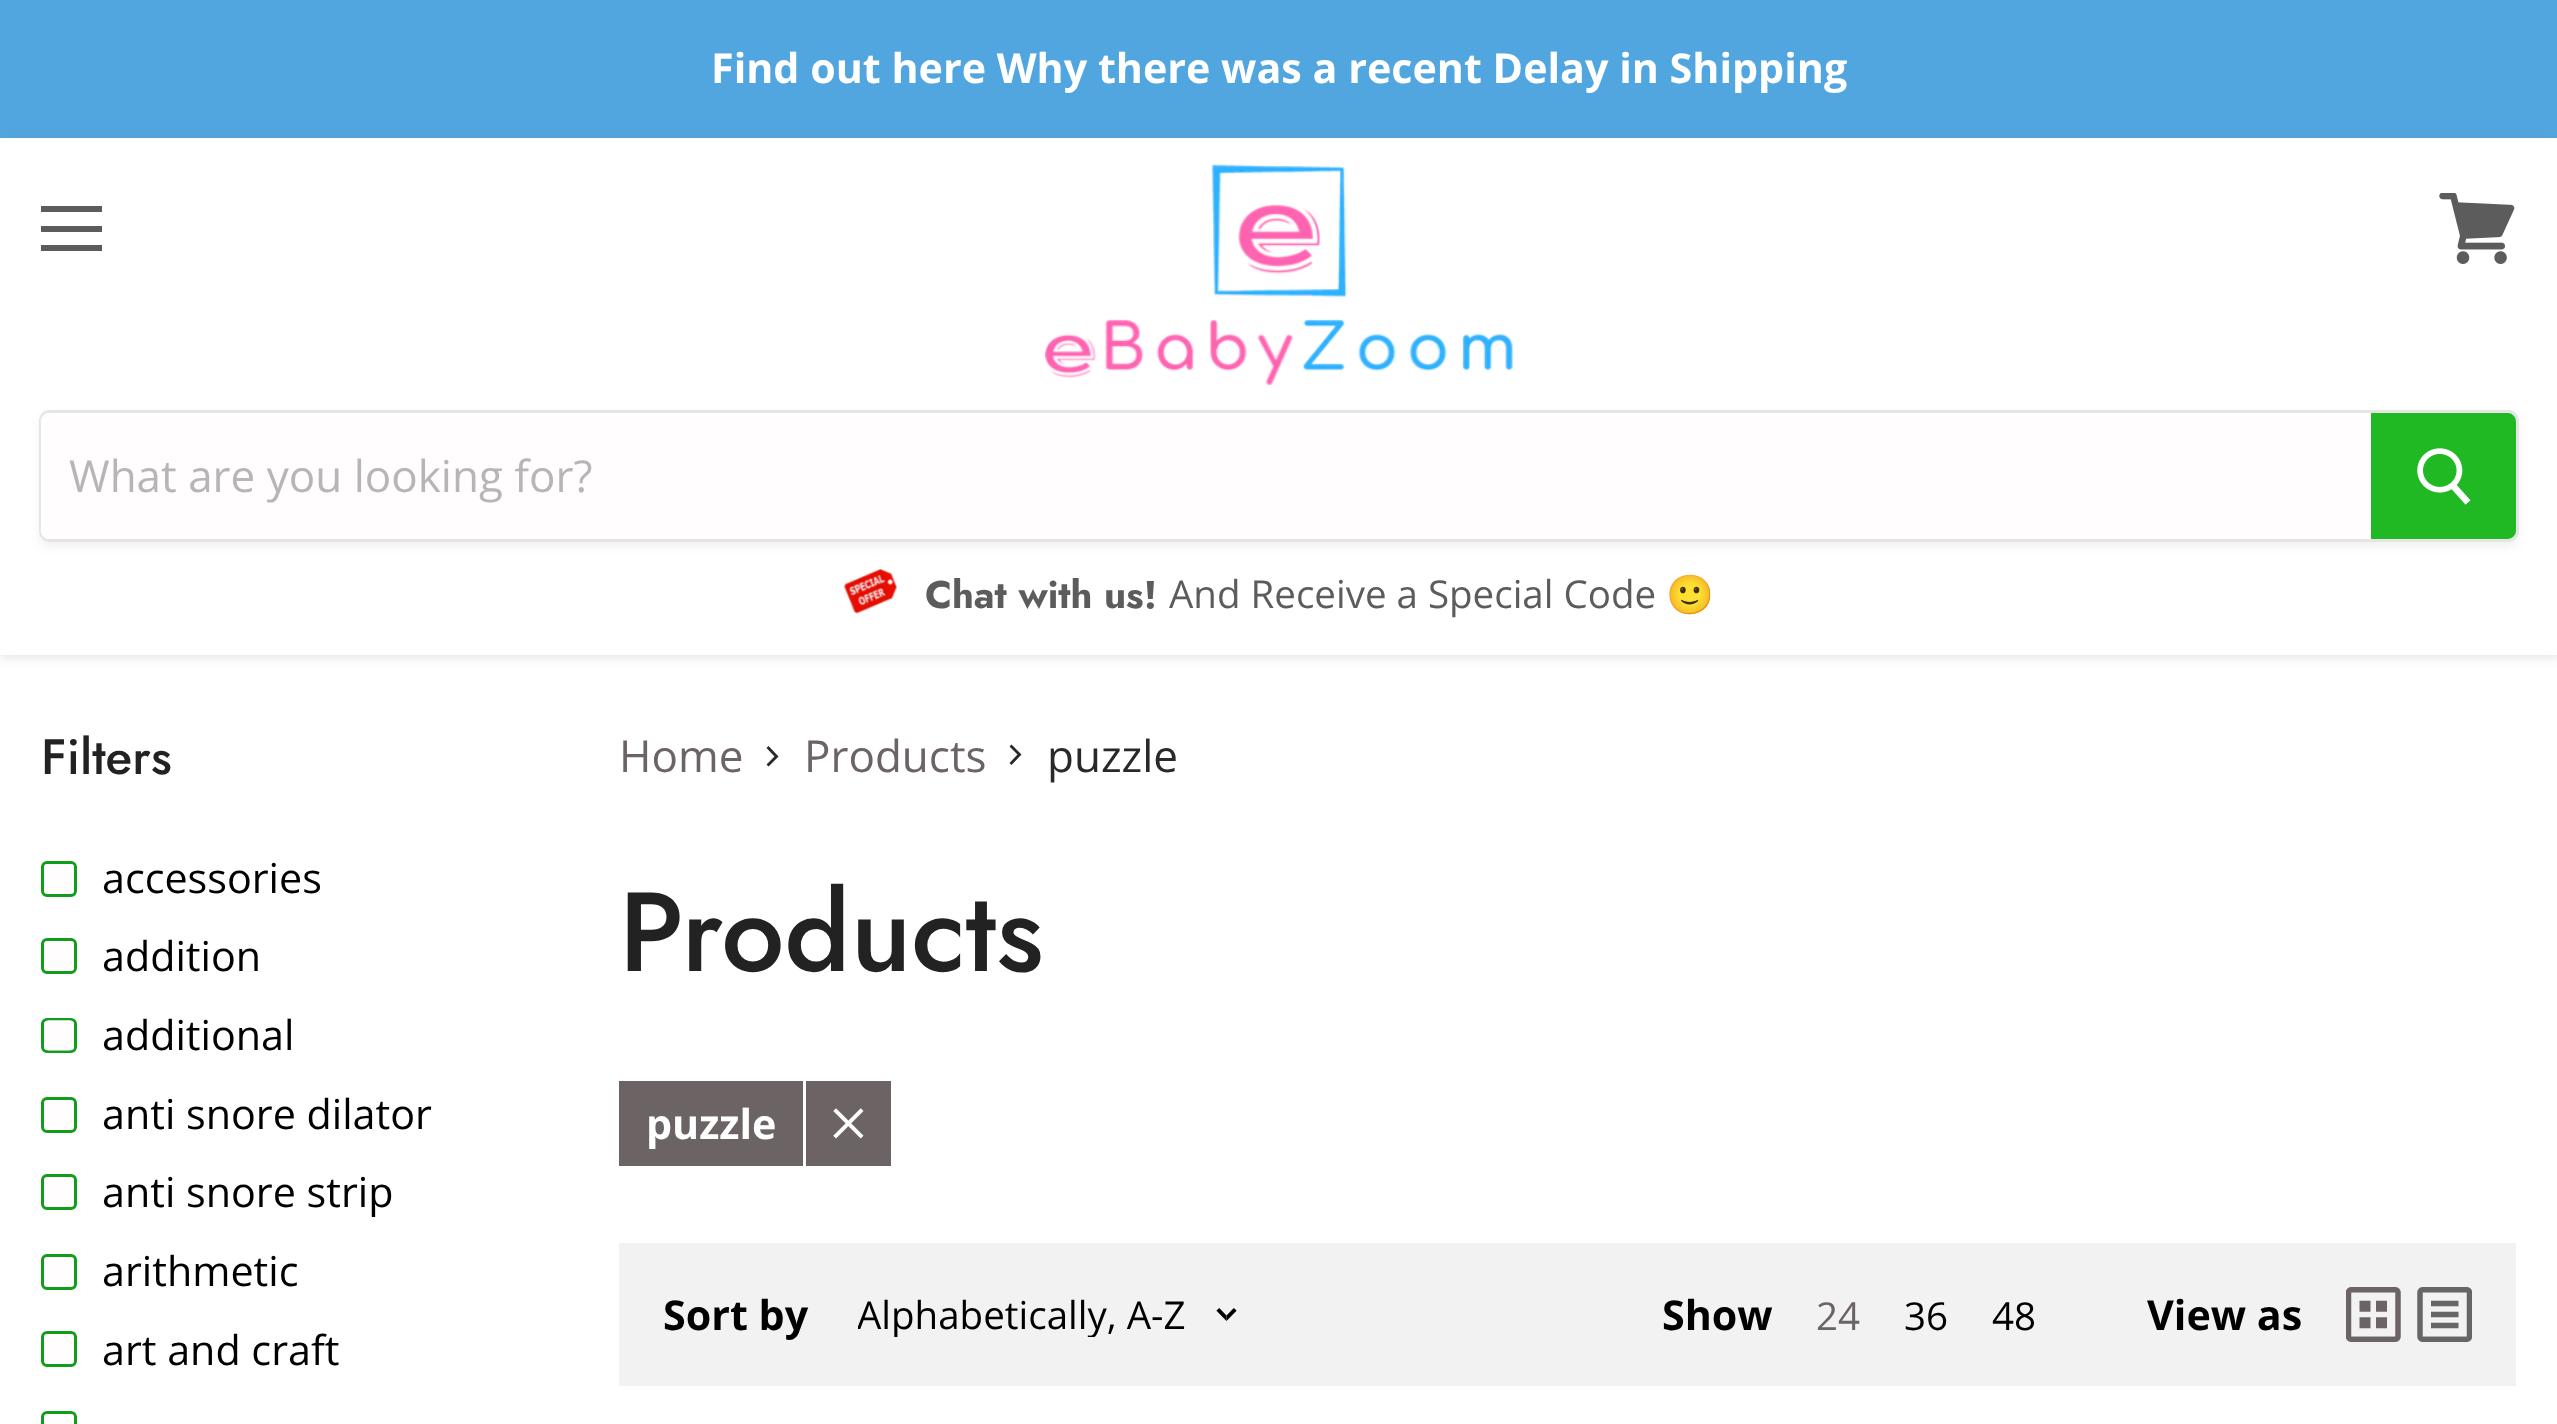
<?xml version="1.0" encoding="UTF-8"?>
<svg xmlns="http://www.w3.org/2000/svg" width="2557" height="1424">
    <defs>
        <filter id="blur1" x="-50%" y="-200%" width="200%" height="500%"><feGaussianBlur stdDeviation="5.5"/></filter>
        <clipPath id="clip1"><path d="M 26 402 H 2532 V 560 H 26 Z M 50 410 H 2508 C 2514 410 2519 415 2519 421 V 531 C 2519 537 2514 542 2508 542 H 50 C 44 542 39 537 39 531 V 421 C 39 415 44 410 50 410 Z" clip-rule="evenodd"/></clipPath>
        <filter id="blur2" x="-50%" y="-200%" width="200%" height="500%"><feGaussianBlur stdDeviation="4"/></filter>
        <clipPath id="clip2"><rect x="858" y="1293" width="330" height="44"/></clipPath>
    </defs>
    <rect width="100%" height="100%" fill="#FFFFFF"/>
    <rect x="0" y="0" width="2557" height="138" fill="#51A6E0"/>
    <text x="711" y="83" font-family="Open Sans" font-size="41.25" font-weight="700" fill="#FFFFFF">Find out here Why there was a recent Delay in Shipping</text>
    <rect x="0" y="140" width="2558" height="517" fill="#7F7F7F" fill-opacity="0.25" filter="url(#blur1)"/>
    <rect x="0" y="138" width="2557" height="517" fill="#FFFFFF"/>
    <rect x="41" y="206" width="61" height="6" fill="#5C5C5C"/>
    <rect x="41" y="226" width="61" height="6" fill="#5C5C5C"/>
    <rect x="41" y="245" width="61" height="6" fill="#5C5C5C"/>
    <image x="2439" y="193" width="76" height="71" href="img_01.png"/>
    <image x="1045" y="164" width="468" height="222" href="img_02.png"/>
    <g clip-path="url(#clip1)">
        <rect x="39" y="415" width="2480" height="132" rx="11" fill="#7F7F7F" fill-opacity="0.11" filter="url(#blur2)"/>
    </g>
    <rect x="40.5" y="411.5" width="2477" height="129" rx="9.5" fill="none" stroke="#7F7F7F" stroke-opacity="0.2" stroke-width="3"/>
    <path d="M 49 413 H 2371 V 539 H 49 C 44.5 539 41 535.5 41 531 V 421 C 41 416.5 44.5 413 49 413 Z" fill="#FFFDFD"/>
    <text x="69" y="492" font-family="Open Sans" font-size="44" fill="#B7B5B5">What are you looking for?</text>
    <path d="M 2372.5 414.5 H 2508 C 2511.5 414.5 2514.5 417.5 2514.5 421 V 531 C 2514.5 534.5 2511.5 537.5 2508 537.5 H 2372.5 Z" fill="#20B823" stroke="#20B823" stroke-width="3"/>
    <image x="2417" y="448" width="54" height="57" href="img_03.png"/>
    <image x="843" y="569" width="54" height="45" href="img_04.png"/>
    <text x="925" y="608" font-family="Jost" font-size="38.5" font-weight="700" fill="#5C5C5C">Chat with us!</text>
    <text x="1169" y="608" font-family="Open Sans" font-size="38.5" fill="#5C5C5C">And Receive a Special Code</text>
    <text x="1666" y="608" font-family="Noto Color Emoji" font-size="38.5" fill="#5C5C5C">🙂</text>
    <text x="41" y="774" font-family="Jost" font-size="49.5" font-weight="500" fill="#222222">Filters</text>
    <rect x="42.5" y="862.5" width="33" height="33" rx="4.5" fill="none" stroke="#129C1B" stroke-width="3"/>
    <image x="44" y="864" width="30" height="30" href="img_05.png"/>
    <text x="102" y="893" font-family="Open Sans" font-size="41.25" fill="#000000">accessories</text>
    <rect x="42.5" y="939.5" width="33" height="33" rx="4.5" fill="none" stroke="#129C1B" stroke-width="3"/>
    <image x="44" y="941" width="30" height="30" href="img_05.png"/>
    <text x="102" y="971" font-family="Open Sans" font-size="41.25" fill="#000000">addition</text>
    <rect x="42.5" y="1019.5" width="33" height="32" rx="4.5" fill="none" stroke="#129C1B" stroke-width="3"/>
    <image x="44" y="1020" width="30" height="31" href="img_06.png"/>
    <text x="102" y="1050" font-family="Open Sans" font-size="41.25" fill="#000000">additional</text>
    <rect x="42.5" y="1098.5" width="33" height="33" rx="4.5" fill="none" stroke="#129C1B" stroke-width="3"/>
    <image x="44" y="1100" width="30" height="30" href="img_07.png"/>
    <text x="102" y="1129" font-family="Open Sans" font-size="41.25" fill="#000000">anti snore dilator</text>
    <rect x="42.5" y="1175.5" width="33" height="33" rx="4.5" fill="none" stroke="#129C1B" stroke-width="3"/>
    <image x="44" y="1177" width="30" height="30" href="img_07.png"/>
    <text x="102" y="1207" font-family="Open Sans" font-size="41.25" fill="#000000">anti snore strip</text>
    <rect x="42.5" y="1255.5" width="33" height="33" rx="4.5" fill="none" stroke="#129C1B" stroke-width="3"/>
    <image x="44" y="1257" width="30" height="30" href="img_08.png"/>
    <text x="102" y="1286" font-family="Open Sans" font-size="41.25" fill="#000000">arithmetic</text>
    <rect x="42.5" y="1332.5" width="33" height="33" rx="4.5" fill="none" stroke="#129C1B" stroke-width="3"/>
    <image x="44" y="1334" width="30" height="30" href="img_08.png"/>
    <text x="102" y="1365" font-family="Open Sans" font-size="41.25" fill="#000000">art and craft</text>
    <rect x="42.5" y="1412.5" width="33" height="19" rx="4.5" fill="none" stroke="#129C1B" stroke-width="3"/>
    <image x="44" y="1414" width="30" height="3" href="img_09.png"/>
    <text x="619" y="772" font-family="Open Sans" font-size="44" fill="#6C6464">Home</text>
    <path d="M 766.5 764.5 L 768.5 766.5 L 778.5 756.5 L 768.5 746 L 766.5 748 L 774.5 756.5 Z" fill="#2B2828" fill-rule="evenodd"/>
    <text x="804" y="772" font-family="Open Sans" font-size="44" fill="#6C6464">Products</text>
    <path d="M 1009.5 763 L 1011.5 765 L 1021.5 754.5 L 1011.5 744.5 L 1009.5 746.5 L 1017.5 754.5 Z" fill="#2B2828" fill-rule="evenodd"/>
    <text x="1047" y="772" font-family="Open Sans" font-size="44" fill="#2B2828">puzzle</text>
    <text x="619" y="971" font-family="Jost" font-size="112" font-weight="500" fill="#222222">Products</text>
    <rect x="619" y="1081" width="272" height="85" fill="#6C6464"/>
    <rect x="803" y="1081" width="3" height="85" fill="#FFFFFF"/>
    <text x="646" y="1139" font-family="Open Sans" font-size="41.25" font-weight="700" fill="#FFFFFF">puzzle</text>
    <image x="833" y="1108" width="31" height="31" href="img_10.png"/>
    <rect x="619" y="1243" width="1897" height="143" fill="#F2F2F2"/>
    <text x="663" y="1330" font-family="Open Sans" font-size="41.25" font-weight="700" fill="#000000">Sort by</text>
    <g clip-path="url(#clip2)">
        <text x="857" y="1329" font-family="Open Sans" font-size="38.5" fill="#000000">Alphabetically, A-Z</text>
    </g>
    <image x="1216" y="1308" width="21" height="13" href="img_11.png"/>
    <text x="1662" y="1330" font-family="Open Sans" font-size="41.25" font-weight="700" fill="#000000">Show</text>
    <text x="1816" y="1330" font-family="Open Sans" font-size="38.5" fill="#6C6464">24</text>
    <text x="1904" y="1330" font-family="Open Sans" font-size="38.5" fill="#000000">36</text>
    <text x="1992" y="1330" font-family="Open Sans" font-size="38.5" fill="#000000">48</text>
    <text x="2147" y="1330" font-family="Open Sans" font-size="41.25" font-weight="700" fill="#000000">View as</text>
    <image x="2346" y="1287" width="55" height="55" href="img_12.png"/>
    <image x="2417" y="1287" width="55" height="55" href="img_13.png"/>
</svg>
